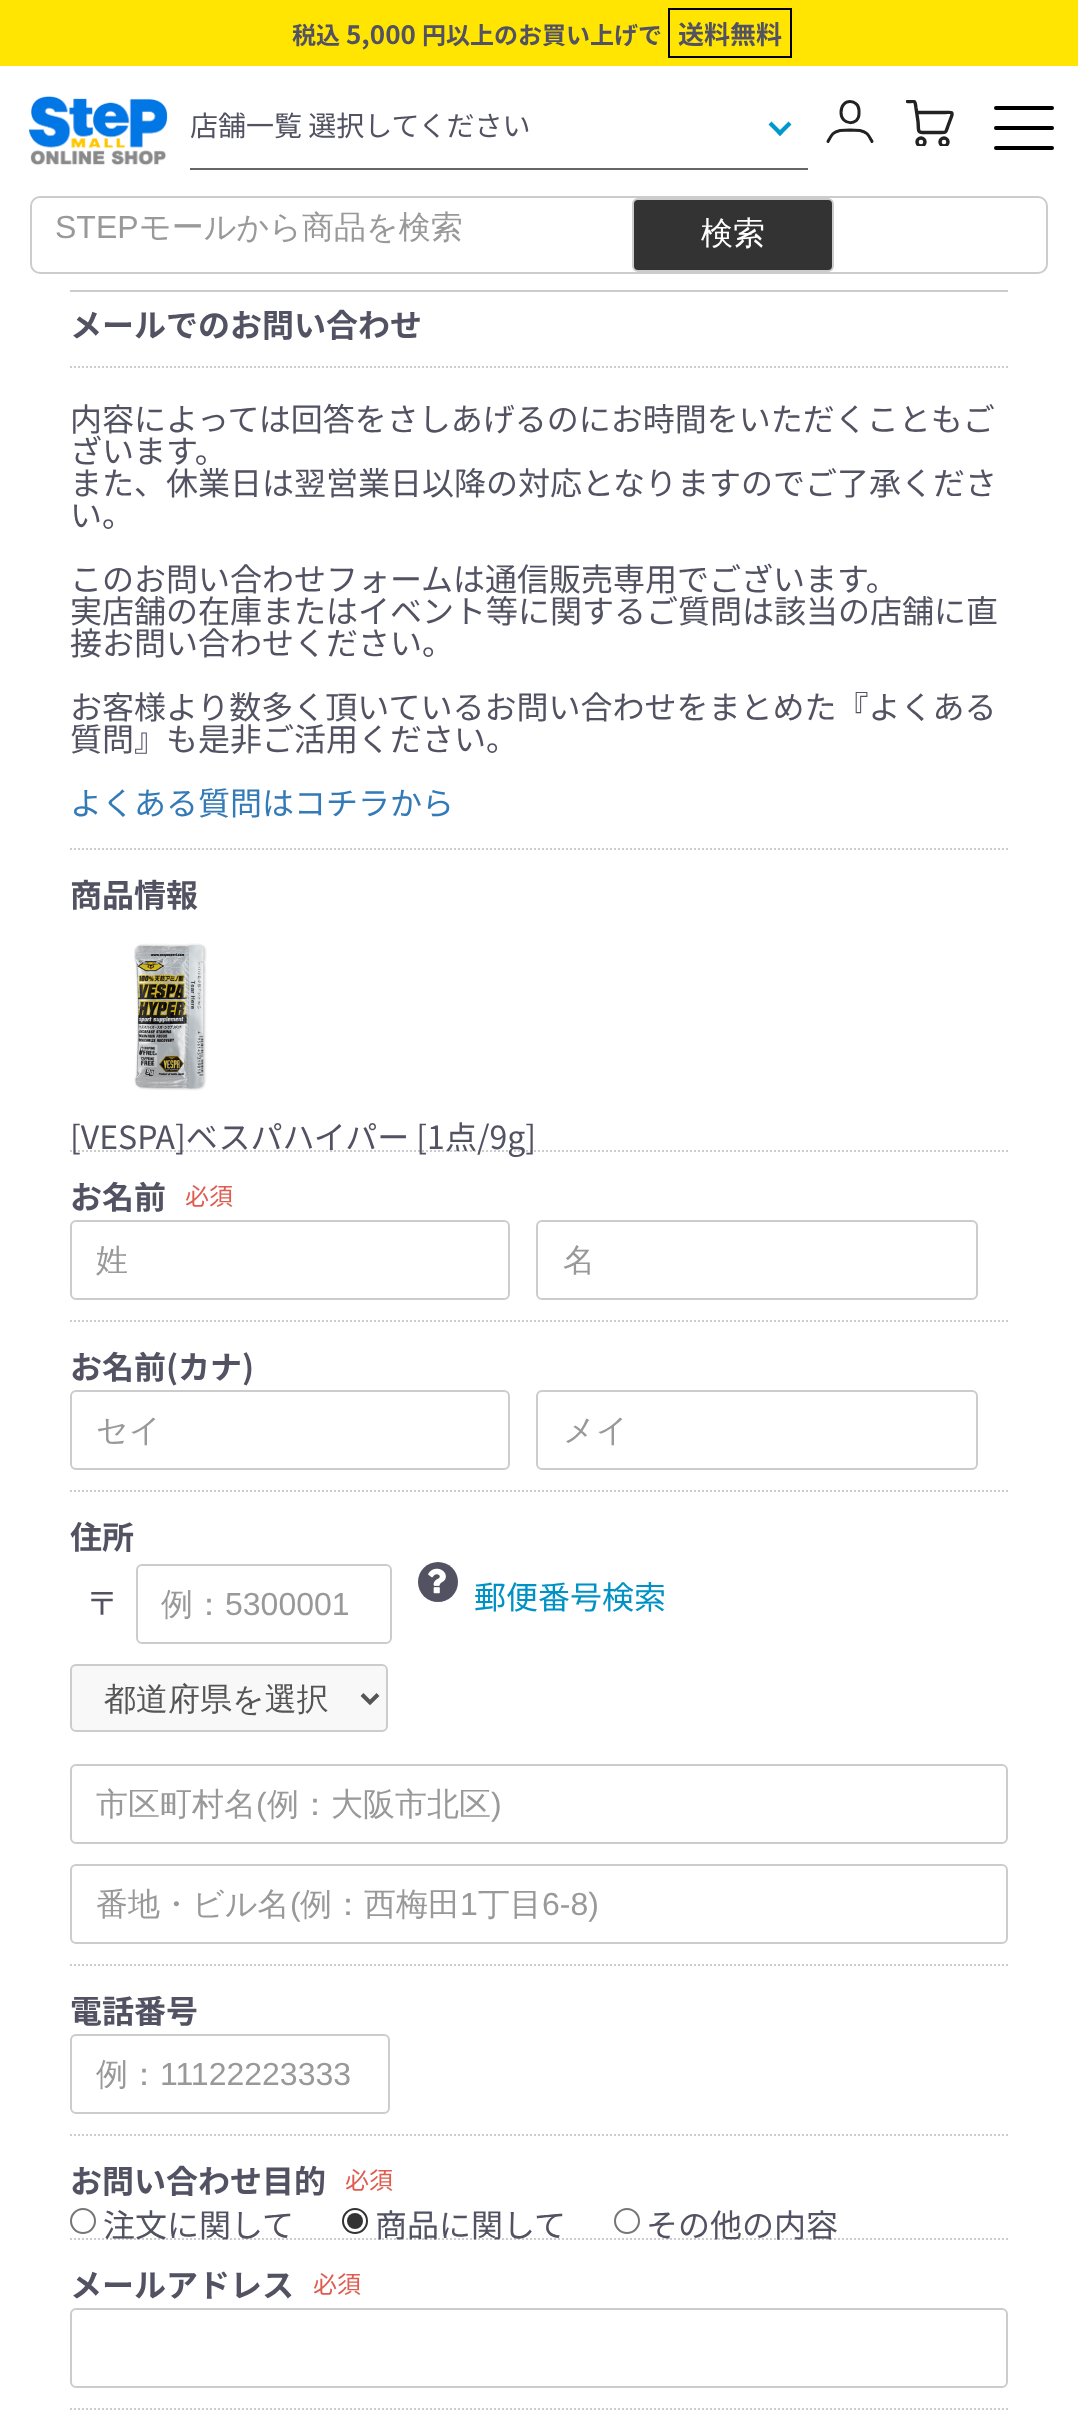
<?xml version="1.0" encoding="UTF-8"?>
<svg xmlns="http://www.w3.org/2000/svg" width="1078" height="2434">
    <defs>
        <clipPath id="clip1"><rect x="906" y="100" width="48" height="46"/></clipPath>
    </defs>
    <rect width="100%" height="100%" fill="#FFFFFF"/>
    <rect x="0" y="0" width="1078" height="66" fill="#FFE501"/>
    <text x="292" y="44" font-family="Noto Sans JP" font-size="24" font-weight="700" fill="#525263">税込</text>
    <text x="346" y="44" font-family="Noto Sans JP" font-size="26" font-weight="700" fill="#525263">5,000</text>
    <text x="422" y="44" font-family="Noto Sans JP" font-size="24" font-weight="700" fill="#525263">円以上のお買い上げで</text>
    <rect x="669" y="9" width="122" height="48" fill="none" stroke="#000000" stroke-width="2"/>
    <text x="678" y="44" font-family="Noto Sans JP" font-size="26" font-weight="700" fill="#525263">送料無料</text>
    <image x="29" y="96" width="139" height="70" href="img_01.png"/>
    <rect x="190" y="168" width="618" height="2" fill="#666666"/>
    <text x="190" y="136" font-family="Noto Sans JP" font-size="28" fill="#525263">店舗一覧 選択してください</text>
    <path d="M 788.5 121.5 L 791.5 124.5 L 780 136 L 777 133 Z" fill="#0099CC"/>
    <path d="M 771.5 121.5 L 783 133 L 780 136 L 768.5 124.5 Z" fill="#0099CC"/>
    <path d="M 859 114 C 859 125.5 841 126 841 112.5 C 841 97.5 859 99 859 110.5 Z M 828 141.5 C 831.5 135 832.5 132 840 130.5 L 850 130 L 860 130.5 C 867.5 132 868.5 135 872 141.5" fill="none" stroke="#222222" stroke-width="3" stroke-linecap="round" stroke-linejoin="round"/>
    <g clip-path="url(#clip1)">
        <path d="M 917 112.5 H 945 C 950 112.5 953.5 111 951.5 116.5 L 948.5 124.5 C 945 134 947.5 132.5 936.5 132.5 H 925 C 916.5 132.5 919 131 918 121.5 L 916 108 C 915 100 915.5 101.5 907.5 101.5" fill="none" stroke="#222222" stroke-width="3.4" stroke-linecap="round" stroke-linejoin="round"/>
        <circle cx="944" cy="142" r="4" fill="none" stroke="#222222" stroke-width="3.4"/>
        <circle cx="921" cy="142" r="4" fill="none" stroke="#222222" stroke-width="3.4"/>
    </g>
    <rect x="994" y="106" width="60" height="4" rx="2" fill="#000000"/>
    <rect x="994" y="126" width="60" height="4" rx="2" fill="#000000"/>
    <rect x="994" y="146" width="60" height="4" rx="2" fill="#000000"/>
    <rect x="31" y="197" width="1016" height="76" rx="9" fill="none" stroke="#CCCCCC" stroke-width="2"/>
    <text x="55" y="238" font-family="Liberation Sans" font-size="32" fill="#999999">STEP</text>
    <text x="139" y="238" font-family="WenQuanYi Zen Hei" font-size="32" font-weight="500" fill="#999999">モールから商品を検索</text>
    <rect x="633" y="199" width="200" height="72" rx="5" fill="#333333" stroke="#CCCCCC" stroke-width="2"/>
    <text x="701" y="244" font-family="WenQuanYi Zen Hei" font-size="32" font-weight="500" fill="#FFFFFF">検索</text>
    <rect x="70" y="290" width="938" height="2" fill="#CCCCCC"/>
    <path d="M 70 367 H 1008" fill="none" stroke="#CCCCCC" stroke-width="2" stroke-dasharray="2 2"/>
    <text x="70" y="337" font-family="Noto Sans JP" font-size="32" font-weight="700" fill="#525263">メールでのお問い合わせ</text>
    <text font-family="Noto Sans JP" font-size="32" fill="#525263">
        <tspan x="70" y="431">内容によっては回答をさしあげるのにお時間をいただくこともご</tspan>
        <tspan x="70" y="463">ざいます。</tspan>
        <tspan x="70" y="495">また、休業日は翌営業日以降の対応となりますのでご了承くださ</tspan>
        <tspan x="70" y="527">い。</tspan>
    </text>
    <text font-family="Noto Sans JP" font-size="32" fill="#525263">
        <tspan x="70" y="591">このお問い合わせフォームは通信販売専用でございます。</tspan>
        <tspan x="70" y="623">実店舗の在庫またはイベント等に関するご質問は該当の店舗に直</tspan>
        <tspan x="70" y="655">接お問い合わせください。</tspan>
    </text>
    <text font-family="Noto Sans JP" font-size="32" fill="#525263">
        <tspan x="70" y="719">お客様より数多く頂いているお問い合わせをまとめた『よくある</tspan>
        <tspan x="70" y="751">質問』も是非ご活用ください。</tspan>
    </text>
    <text x="70" y="815" font-family="Noto Sans JP" font-size="32" fill="#337AB7">よくある質問はコチラから</text>
    <path d="M 70 849 H 1008" fill="none" stroke="#CCCCCC" stroke-width="2" stroke-dasharray="2 2"/>
    <path d="M 70 1151 H 1008" fill="none" stroke="#CCCCCC" stroke-width="2" stroke-dasharray="2 2"/>
    <text x="70" y="907" font-family="Noto Sans JP" font-size="32" font-weight="700" fill="#525263">商品情報</text>
    <image x="134" y="943" width="73" height="148" href="img_02.png"/>
    <text x="70" y="1149" font-family="Noto Sans JP" font-size="32" fill="#525263">[VESPA]ベスパハイパー [1点/9g]</text>
    <path d="M 70 1321 H 1008" fill="none" stroke="#CCCCCC" stroke-width="2" stroke-dasharray="2 2"/>
    <text x="70" y="1209" font-family="Noto Sans JP" font-size="32" font-weight="700" fill="#525263">お名前</text>
    <text x="185" y="1205" font-family="Noto Sans JP" font-size="24" fill="#DE5D50">必須</text>
    <rect x="71" y="1221" width="438" height="78" rx="5" fill="none" stroke="#CCCCCC" stroke-width="2"/>
    <text x="96" y="1271" font-family="WenQuanYi Zen Hei" font-size="32" font-weight="500" fill="#999999">姓</text>
    <rect x="537" y="1221" width="440" height="78" rx="5" fill="none" stroke="#CCCCCC" stroke-width="2"/>
    <text x="563" y="1271" font-family="WenQuanYi Zen Hei" font-size="32" font-weight="500" fill="#999999">名</text>
    <path d="M 70 1491 H 1008" fill="none" stroke="#CCCCCC" stroke-width="2" stroke-dasharray="2 2"/>
    <text x="70" y="1379" font-family="Noto Sans JP" font-size="32" font-weight="700" fill="#525263">お名前(カナ)</text>
    <rect x="71" y="1391" width="438" height="78" rx="5" fill="none" stroke="#CCCCCC" stroke-width="2"/>
    <text x="96" y="1441" font-family="WenQuanYi Zen Hei" font-size="32" font-weight="500" fill="#999999">セイ</text>
    <rect x="537" y="1391" width="440" height="78" rx="5" fill="none" stroke="#CCCCCC" stroke-width="2"/>
    <text x="563" y="1441" font-family="WenQuanYi Zen Hei" font-size="32" font-weight="500" fill="#999999">メイ</text>
    <path d="M 70 1965 H 1008" fill="none" stroke="#CCCCCC" stroke-width="2" stroke-dasharray="2 2"/>
    <text x="70" y="1549" font-family="Noto Sans JP" font-size="32" font-weight="700" fill="#525263">住所</text>
    <text x="86" y="1615" font-family="Noto Sans JP" font-size="32" fill="#525263">〒</text>
    <rect x="137" y="1565" width="254" height="78" rx="5" fill="none" stroke="#CCCCCC" stroke-width="2"/>
    <text x="161" y="1615" font-family="WenQuanYi Zen Hei" font-size="32" font-weight="500" fill="#999999">例：</text>
    <text x="225" y="1615" font-family="Liberation Sans" font-size="32" fill="#999999">5300001</text>
    <circle cx="438" cy="1582" r="20" fill="#525263"/>
    <image x="428" y="1568" width="18" height="26" href="img_03.png"/>
    <text x="474" y="1609" font-family="Noto Sans JP" font-size="32" fill="#0092C4">郵便番号検索</text>
    <rect x="71" y="1665" width="316" height="66" rx="5" fill="#F8F8F8" stroke="#CCCCCC" stroke-width="2"/>
    <path d="M 362 1694.5 L 370 1702.5 L 378 1694.5" fill="none" stroke="#555555" stroke-width="4"/>
    <text x="104" y="1710" font-family="WenQuanYi Zen Hei" font-size="32" font-weight="500" fill="#555555">都道府県を選択</text>
    <rect x="71" y="1765" width="936" height="78" rx="5" fill="none" stroke="#CCCCCC" stroke-width="2"/>
    <text x="96" y="1815" font-family="WenQuanYi Zen Hei" font-size="32" font-weight="500" fill="#999999">市区町村名</text>
    <text x="256" y="1815" font-family="Liberation Sans" font-size="32" fill="#999999">(</text>
    <text x="267" y="1815" font-family="WenQuanYi Zen Hei" font-size="32" font-weight="500" fill="#999999">例：大阪市北区</text>
    <text x="491" y="1815" font-family="Liberation Sans" font-size="32" fill="#999999">)</text>
    <rect x="71" y="1865" width="936" height="78" rx="5" fill="none" stroke="#CCCCCC" stroke-width="2"/>
    <text x="96" y="1915" font-family="WenQuanYi Zen Hei" font-size="32" font-weight="500" fill="#999999">番地・ビル名</text>
    <text x="290" y="1915" font-family="Liberation Sans" font-size="32" fill="#999999">(</text>
    <text x="300" y="1915" font-family="WenQuanYi Zen Hei" font-size="32" font-weight="500" fill="#999999">例：西梅田</text>
    <text x="460" y="1915" font-family="Liberation Sans" font-size="32" fill="#999999">1</text>
    <text x="478" y="1915" font-family="WenQuanYi Zen Hei" font-size="32" font-weight="500" fill="#999999">丁目</text>
    <text x="542" y="1915" font-family="Liberation Sans" font-size="32" fill="#999999">6-8)</text>
    <path d="M 70 2135 H 1008" fill="none" stroke="#CCCCCC" stroke-width="2" stroke-dasharray="2 2"/>
    <text x="70" y="2023" font-family="Noto Sans JP" font-size="32" font-weight="700" fill="#525263">電話番号</text>
    <rect x="71" y="2035" width="318" height="78" rx="5" fill="none" stroke="#CCCCCC" stroke-width="2"/>
    <text x="96" y="2085" font-family="WenQuanYi Zen Hei" font-size="32" font-weight="500" fill="#999999">例：</text>
    <text x="160" y="2085" font-family="Liberation Sans" font-size="32" fill="#999999">11122223333</text>
    <path d="M 70 2239 H 1008" fill="none" stroke="#CCCCCC" stroke-width="2" stroke-dasharray="2 2"/>
    <text x="70" y="2193" font-family="Noto Sans JP" font-size="32" font-weight="700" fill="#525263">お問い合わせ目的</text>
    <text x="345" y="2189" font-family="Noto Sans JP" font-size="24" fill="#DE5D50">必須</text>
    <circle cx="83" cy="2221" r="12" fill="none" stroke="#767676" stroke-width="2"/>
    <text x="103" y="2237" font-family="Noto Sans JP" font-size="32" fill="#525263">注文に関して</text>
    <circle cx="355" cy="2221" r="12" fill="none" stroke="#333333" stroke-width="2"/>
    <circle cx="355" cy="2221" r="8" fill="#333333"/>
    <text x="375" y="2237" font-family="Noto Sans JP" font-size="32" fill="#525263">商品に関して</text>
    <circle cx="627" cy="2221" r="12" fill="none" stroke="#767676" stroke-width="2"/>
    <text x="646" y="2237" font-family="Noto Sans JP" font-size="32" fill="#525263">その他の内容</text>
    <path d="M 70 2409 H 1008" fill="none" stroke="#CCCCCC" stroke-width="2" stroke-dasharray="2 2"/>
    <text x="70" y="2297" font-family="Noto Sans JP" font-size="32" font-weight="700" fill="#525263">メールアドレス</text>
    <text x="313" y="2293" font-family="Noto Sans JP" font-size="24" fill="#DE5D50">必須</text>
    <rect x="71" y="2309" width="936" height="78" rx="5" fill="none" stroke="#CCCCCC" stroke-width="2"/>
</svg>
